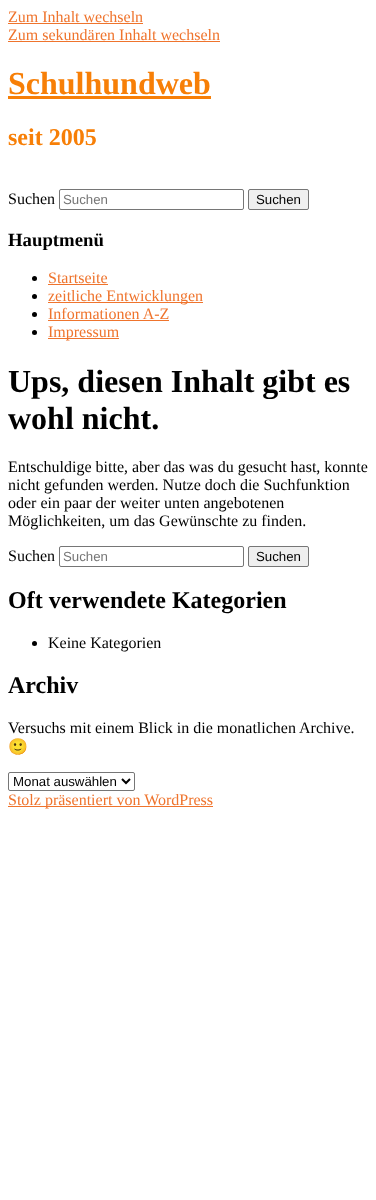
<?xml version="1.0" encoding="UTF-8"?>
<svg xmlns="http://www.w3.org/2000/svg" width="376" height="1200">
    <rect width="100%" height="100%" fill="#FFFFFF"/>
    <text x="8" y="22" font-family="Liberation Serif" font-size="16" fill="#EF742D">Zum Inhalt wechseln</text>
    <rect x="8" y="23" width="135" height="1" fill="#EF742D"/>
    <text x="8" y="40" font-family="Liberation Serif" font-size="16" fill="#EF742D">Zum sekundären Inhalt wechseln</text>
    <rect x="8" y="41" width="212" height="1" fill="#EF742D"/>
    <text x="8" y="94" font-family="Liberation Serif" font-size="32" font-weight="700" fill="#F77F07">Schulhundweb</text>
    <rect x="8" y="96" width="203" height="3" fill="#F77F07"/>
    <text x="8" y="145" font-family="Liberation Serif" font-size="24" font-weight="700" fill="#F77F07">seit 2005</text>
    <text x="8" y="204" font-family="Liberation Serif" font-size="16" fill="#000000">Suchen</text>
    <rect x="59.5" y="189.5" width="184" height="20" rx="1.5" fill="none" stroke="#767676"/>
    <text x="63" y="204" font-family="Liberation Sans" font-size="13.25" fill="#757575">Suchen</text>
    <rect x="248.5" y="189.5" width="60" height="20" rx="1.5" fill="#EFEFEF" stroke="#767676"/>
    <text x="256" y="204" font-family="Liberation Sans" font-size="13.25" fill="#000000">Suchen</text>
    <text x="8" y="246" font-family="Liberation Serif" font-size="18.75" font-weight="700" fill="#000000">Hauptmenü</text>
    <circle cx="34.5" cy="278.5" r="2.5" fill="#000000"/>
    <text x="48" y="283" font-family="Liberation Serif" font-size="16" fill="#EF742D">Startseite</text>
    <rect x="48" y="284" width="60" height="1" fill="#EF742D"/>
    <circle cx="34.5" cy="296.5" r="2.5" fill="#000000"/>
    <rect x="48" y="302" width="155" height="1" fill="#EF742D"/>
    <text x="48" y="301" font-family="Liberation Serif" font-size="16" fill="#EF742D">zeitliche Entwicklungen</text>
    <circle cx="34.5" cy="314.5" r="2.5" fill="#000000"/>
    <text x="48" y="319" font-family="Liberation Serif" font-size="16" fill="#EF742D">Informationen A-Z</text>
    <rect x="48" y="320" width="121" height="1" fill="#EF742D"/>
    <circle cx="34.5" cy="332.5" r="2.5" fill="#000000"/>
    <rect x="48" y="338" width="71" height="1" fill="#EF742D"/>
    <text x="48" y="337" font-family="Liberation Serif" font-size="16" fill="#EF742D">Impressum</text>
    <text font-family="Liberation Serif" font-size="32" font-weight="700" fill="#000000">
        <tspan x="8" y="392">Ups, diesen Inhalt gibt es</tspan>
        <tspan x="8" y="429">wohl nicht.</tspan>
    </text>
    <text font-family="Liberation Serif" font-size="16" fill="#000000">
        <tspan x="8" y="472">Entschuldige bitte, aber das was du gesucht hast, konnte</tspan>
        <tspan x="8" y="490">nicht gefunden werden. Nutze doch die Suchfunktion</tspan>
        <tspan x="8" y="508">oder ein paar der weiter unten angebotenen</tspan>
        <tspan x="8" y="526">Möglichkeiten, um das Gewünschte zu finden.</tspan>
    </text>
    <text x="8" y="561" font-family="Liberation Serif" font-size="16" fill="#000000">Suchen</text>
    <rect x="59.5" y="546.5" width="184" height="20" rx="1.5" fill="none" stroke="#767676"/>
    <text x="63" y="561" font-family="Liberation Sans" font-size="13.25" fill="#757575">Suchen</text>
    <rect x="248.5" y="546.5" width="60" height="20" rx="1.5" fill="#EFEFEF" stroke="#767676"/>
    <text x="256" y="561" font-family="Liberation Sans" font-size="13.25" fill="#000000">Suchen</text>
    <text x="8" y="608" font-family="Liberation Serif" font-size="24" font-weight="700" fill="#000000">Oft verwendete Kategorien</text>
    <circle cx="34.5" cy="643.5" r="2.5" fill="#000000"/>
    <text x="48" y="648" font-family="Liberation Serif" font-size="16" fill="#000000">Keine Kategorien</text>
    <text x="8" y="693" font-family="Liberation Serif" font-size="24" font-weight="700" fill="#000000">Archiv</text>
    <text x="8" y="733" font-family="Liberation Serif" font-size="16" fill="#000000">Versuchs mit einem Blick in die monatlichen Archive.</text>
    <text x="8" y="752" font-family="Noto Color Emoji" font-size="16" fill="#000000">🙂</text>
    <rect x="8.5" y="772.5" width="126" height="18" rx="1.5" fill="none" stroke="#767676"/>
    <path d="M 122 779 L 126 783 L 130 779" fill="none" stroke="#000000" stroke-width="2"/>
    <text x="13" y="786" font-family="Liberation Sans" font-size="13.25" fill="#000000">Monat auswählen</text>
    <rect x="8" y="806" width="205" height="1" fill="#EF742D"/>
    <text x="8" y="805" font-family="Liberation Serif" font-size="16" fill="#EF742D">Stolz präsentiert von WordPress</text>
</svg>
